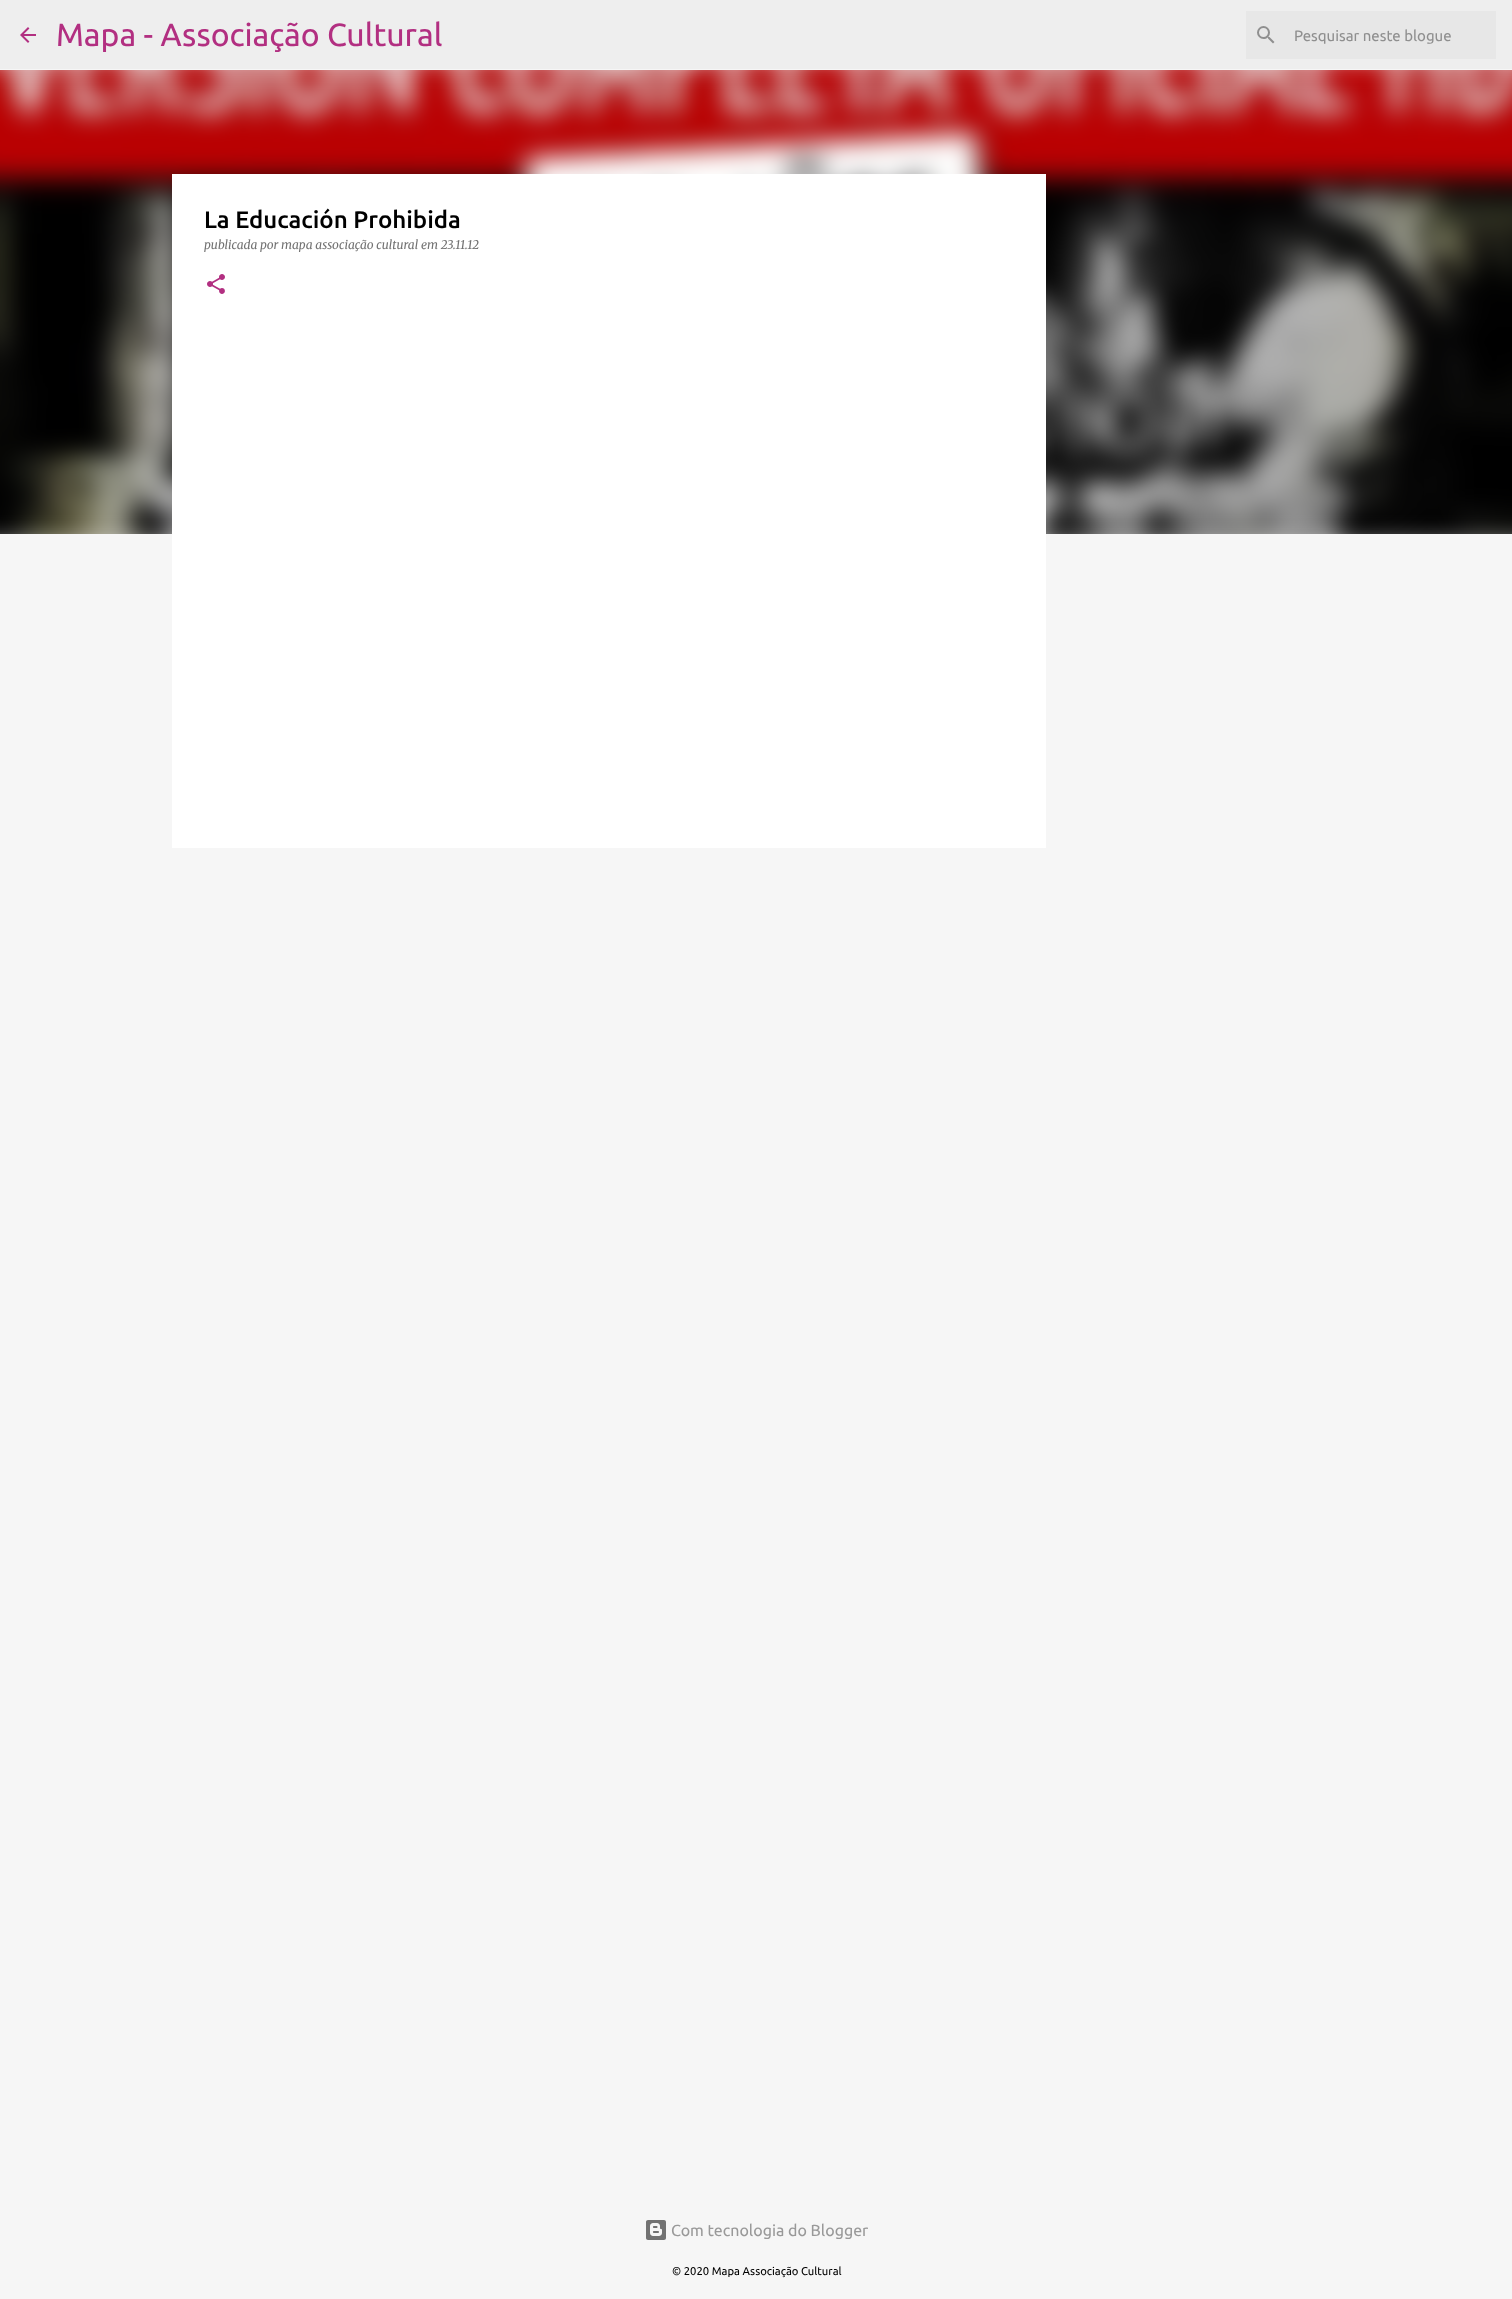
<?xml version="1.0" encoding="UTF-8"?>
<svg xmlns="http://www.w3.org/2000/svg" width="1512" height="2299">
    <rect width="100%" height="100%" fill="#F6F6F6"/>
    <rect x="0" y="0" width="1512" height="69" fill="#EEEEEE"/>
    <image x="20" y="27" width="16" height="16" href="img_01.png"/>
    <text x="56" y="46" font-family="Ubuntu" font-size="32" fill="#B22F81">Mapa - Associação Cultural</text>
    <rect x="1246" y="11" width="250" height="48" fill="#E7E7E7"/>
    <image x="1257" y="26" width="18" height="18" href="img_02.png"/>
    <text x="1294" y="41" font-family="Ubuntu" font-size="15" fill="#8F8F8F">Pesquisar neste blogue</text>
    <image x="0" y="70" width="1512" height="464" href="img_04.png"/>
    <rect x="172" y="174" width="874" height="674" fill="#FFFFFF"/>
    <text x="204" y="228" font-family="Ubuntu" font-size="24" font-weight="500" fill="#000000">La Educación Prohibida</text>
    <text x="204" y="249" font-family="Merriweather" font-size="12" font-style="italic" fill="#727272">publicada por mapa associação cultural em 23.11.12</text>
    <image x="207" y="274" width="18" height="20" href="img_03.png"/>
    <image x="646" y="2220" width="20" height="20" href="img_05.png"/>
    <text x="671" y="2236" font-family="Ubuntu" font-size="16" fill="#999999">Com tecnologia do Blogger</text>
    <text x="672" y="2275" font-family="Ubuntu" font-size="11.25" fill="#000000">© 2020 Mapa Associação Cultural</text>
</svg>
